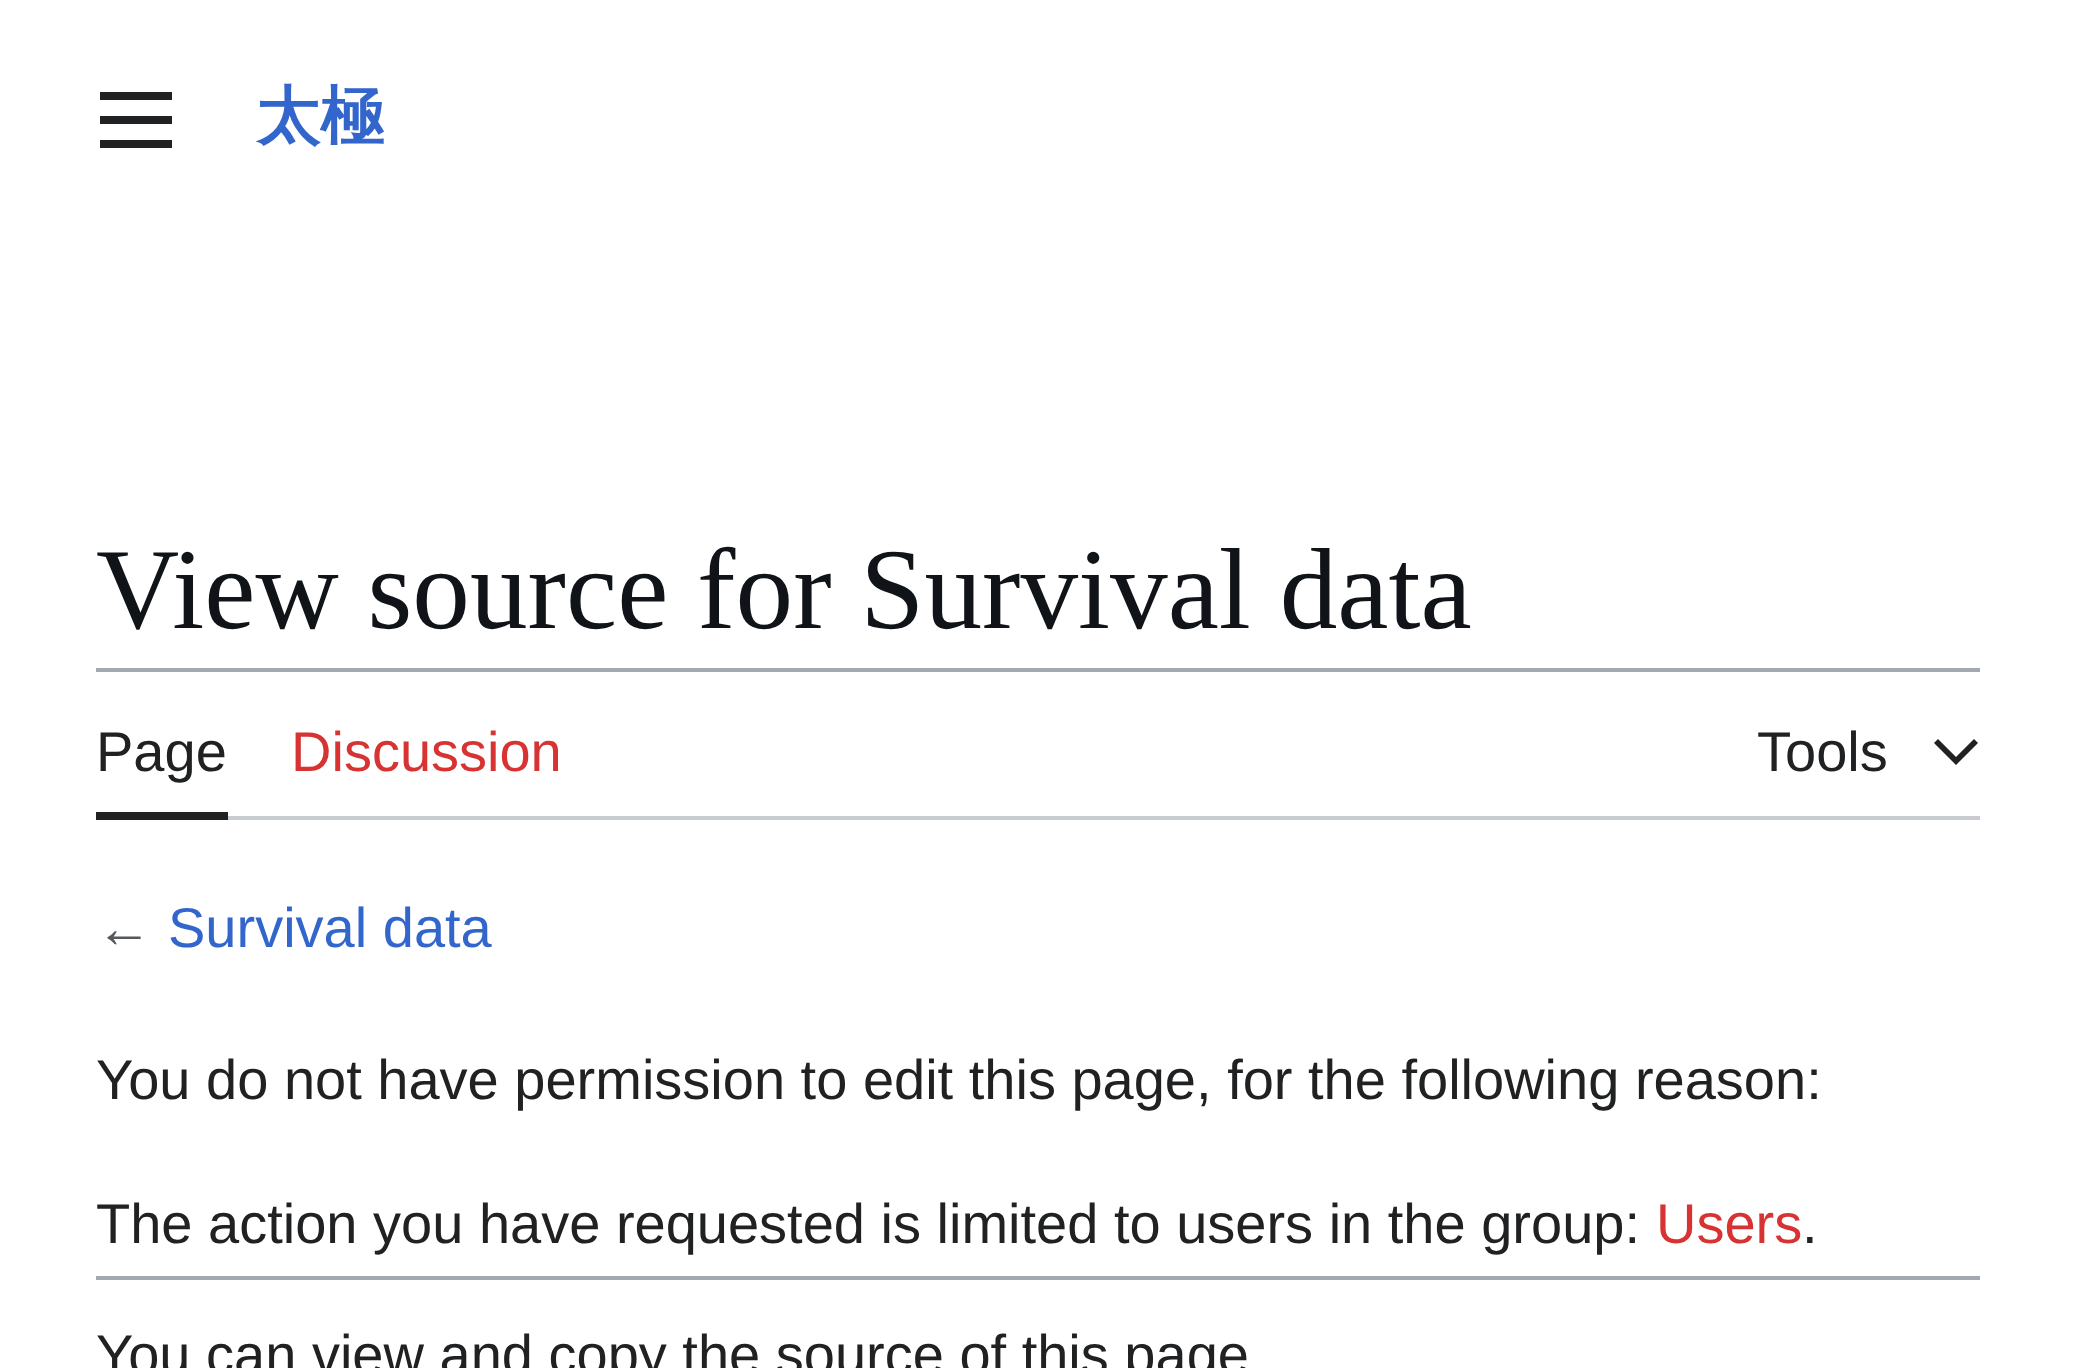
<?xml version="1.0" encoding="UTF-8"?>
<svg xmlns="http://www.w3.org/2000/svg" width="2076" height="1368">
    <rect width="100%" height="100%" fill="#FFFFFF"/>
    <image x="100" y="92" width="72" height="56" href="img_01.png"/>
    <text x="256" y="138" font-family="WenQuanYi Zen Hei" font-size="64" font-weight="700" fill="#3366CC">太極</text>
    <text x="96" y="628" font-family="Liberation Serif" font-size="115.25" fill="#101418">View source for Survival data</text>
    <rect x="96" y="668" width="1884" height="4" fill="#A2A9B1"/>
    <rect x="228" y="816" width="1752" height="4" fill="#C8CCD1"/>
    <rect x="96" y="812" width="132" height="8" fill="#202122"/>
    <text x="96" y="771" font-family="Liberation Sans" font-size="56" fill="#202122">Page</text>
    <text x="291" y="771" font-family="Liberation Sans" font-size="56" fill="#D73333">Discussion</text>
    <text x="1757" y="771" font-family="Liberation Sans" font-size="56" fill="#202122">Tools</text>
    <path d="M 1974 739 L 1956 757 L 1938 739 L 1934 743 L 1956 765 L 1978 743 Z" fill="#202122"/>
    <text x="96" y="947" font-family="Liberation Sans" font-size="56" fill="#54595D">←</text>
    <text x="168" y="947" font-family="Liberation Sans" font-size="56" fill="#3366CC">Survival data</text>
    <text x="96" y="1099" font-family="Liberation Sans" font-size="56" fill="#202122">You do not have permission to edit this page, for the following reason:</text>
    <text x="96" y="1243" font-family="Liberation Sans" font-size="56" fill="#202122">The action you have requested is limited to users in the group:</text>
    <text x="1656" y="1243" font-family="Liberation Sans" font-size="56" fill="#D73333">Users</text>
    <text x="1802" y="1243" font-family="Liberation Sans" font-size="56" fill="#202122">.</text>
    <rect x="96" y="1276" width="1884" height="4" fill="#A2A9B1"/>
    <text x="96" y="1374" font-family="Liberation Sans" font-size="56" fill="#202122">You can view and copy the source of this page</text>
</svg>
